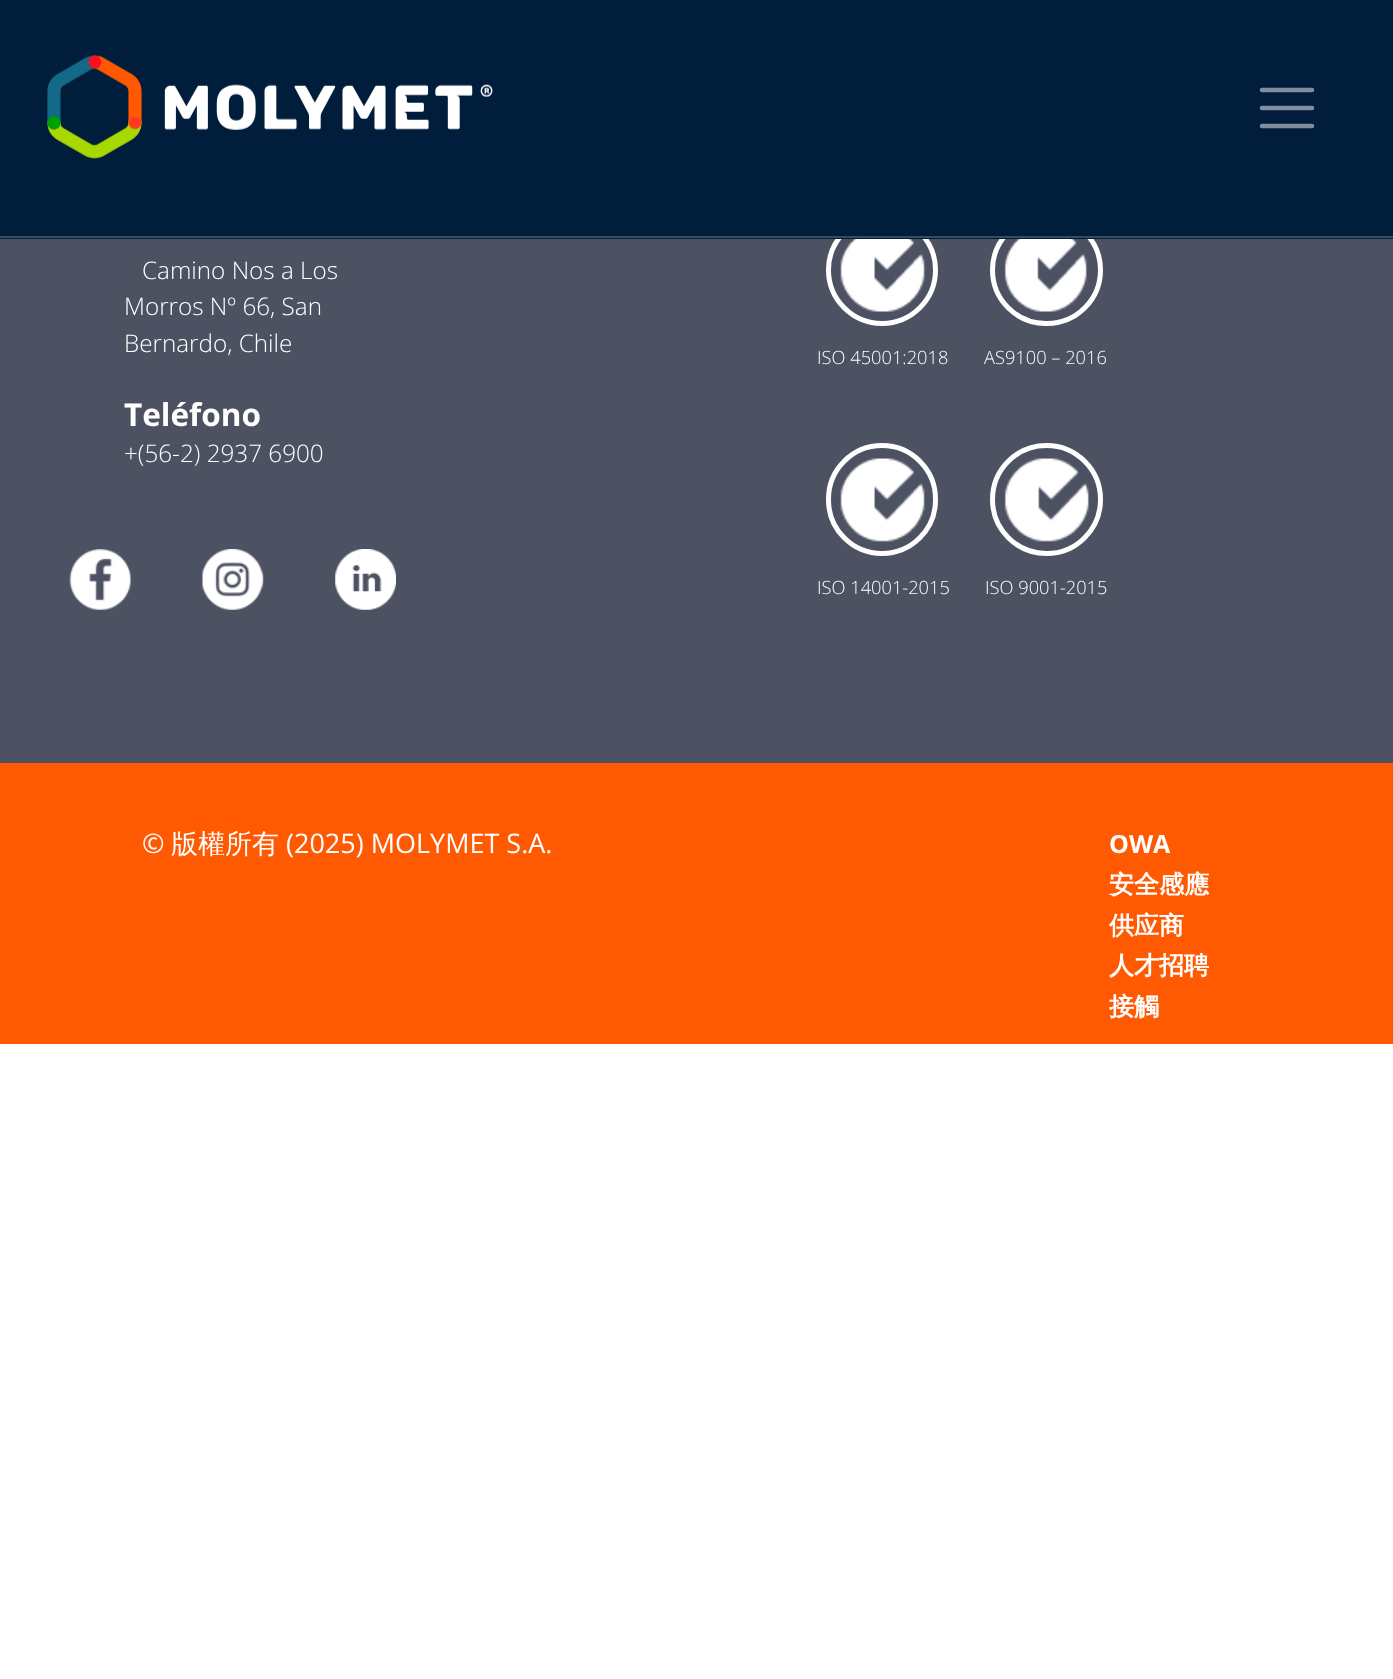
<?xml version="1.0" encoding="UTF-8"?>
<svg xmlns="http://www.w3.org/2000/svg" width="1393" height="1679">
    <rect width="100%" height="100%" fill="#FFFFFF"/>
    <rect x="0" y="239" width="1393" height="524" fill="#4D5262"/>
    <circle cx="882" cy="270" r="53.5" fill="none" stroke="#FFFFFF" stroke-width="5"/>
    <rect x="992.5" y="216.5" width="108" height="107" rx="53.5" fill="none" stroke="#FFFFFF" stroke-width="5"/>
    <rect x="0" y="0" width="1393" height="239" fill="#001E3C"/>
    <rect x="0" y="236" width="1393" height="2" fill="#334B63"/>
    <image x="47" y="54" width="446" height="105" href="img_01.png"/>
    <path d="M 1262 90 H 1312 M 1262 108 H 1312 M 1262 126 H 1312" fill="none" stroke="#808F9E" stroke-width="4.5" stroke-linecap="round"/>
    <text x="142" y="279" font-family="Open Sans" font-size="24.25" font-weight="300" fill="#FFFFFF">Camino Nos a Los</text>
    <text font-family="Open Sans" font-size="24.25" font-weight="300" fill="#FFFFFF">
        <tspan x="124" y="315">Morros Nº 66, San</tspan>
        <tspan x="124" y="352">Bernardo, Chile</tspan>
    </text>
    <text x="124" y="426" font-family="Open Sans" font-size="31.5" font-weight="700" fill="#FFFFFF">Teléfono</text>
    <text x="124" y="462" font-family="Open Sans" font-size="24.25" font-weight="300" fill="#FFFFFF">+(56-2) 2937 6900</text>
    <image x="69" y="549" width="62" height="61" href="img_02.png"/>
    <image x="202" y="549" width="62" height="61" href="img_03.png"/>
    <image x="335" y="549" width="61" height="61" href="img_04.png"/>
    <image x="840" y="239" width="85" height="73" href="img_05.png"/>
    <text x="817" y="364" font-family="Open Sans" font-size="18.25" font-weight="300" fill="#FFFFFF">ISO 45001:2018</text>
    <image x="1004" y="239" width="83" height="73" href="img_06.png"/>
    <text x="984" y="364" font-family="Open Sans" font-size="18.25" font-weight="300" fill="#FFFFFF">AS9100 – 2016</text>
    <rect x="828.5" y="445.5" width="107" height="108" rx="53.5" fill="none" stroke="#FFFFFF" stroke-width="5"/>
    <image x="840" y="458" width="85" height="84" href="img_07.png"/>
    <text x="817" y="594" font-family="Open Sans" font-size="18.25" font-weight="300" fill="#FFFFFF">ISO 14001-2015</text>
    <circle cx="1046.5" cy="499.5" r="54" fill="none" stroke="#FFFFFF" stroke-width="5"/>
    <image x="1004" y="458" width="85" height="84" href="img_08.png"/>
    <text x="985" y="594" font-family="Open Sans" font-size="18.25" font-weight="300" fill="#FFFFFF">ISO 9001-2015</text>
    <rect x="0" y="763" width="1393" height="281" fill="#FF5902"/>
    <text x="142" y="853" font-family="Open Sans" font-size="27" fill="#FFFFFF">©</text>
    <text x="171" y="853" font-family="WenQuanYi Zen Hei" font-size="27" font-weight="500" fill="#FFFFFF">版權所有</text>
    <text x="286" y="853" font-family="Open Sans" font-size="27" fill="#FFFFFF">(2025) MOLYMET S.A.</text>
    <text x="1109" y="853" font-family="Open Sans" font-size="25" font-weight="700" fill="#FFFFFF">OWA</text>
    <text font-family="WenQuanYi Zen Hei" font-size="25" font-weight="700" fill="#FFFFFF">
        <tspan x="1109" y="893">安全感應</tspan>
        <tspan x="1109" y="934">供应商</tspan>
        <tspan x="1109" y="974">人才招聘</tspan>
        <tspan x="1109" y="1015">接觸</tspan>
    </text>
</svg>
